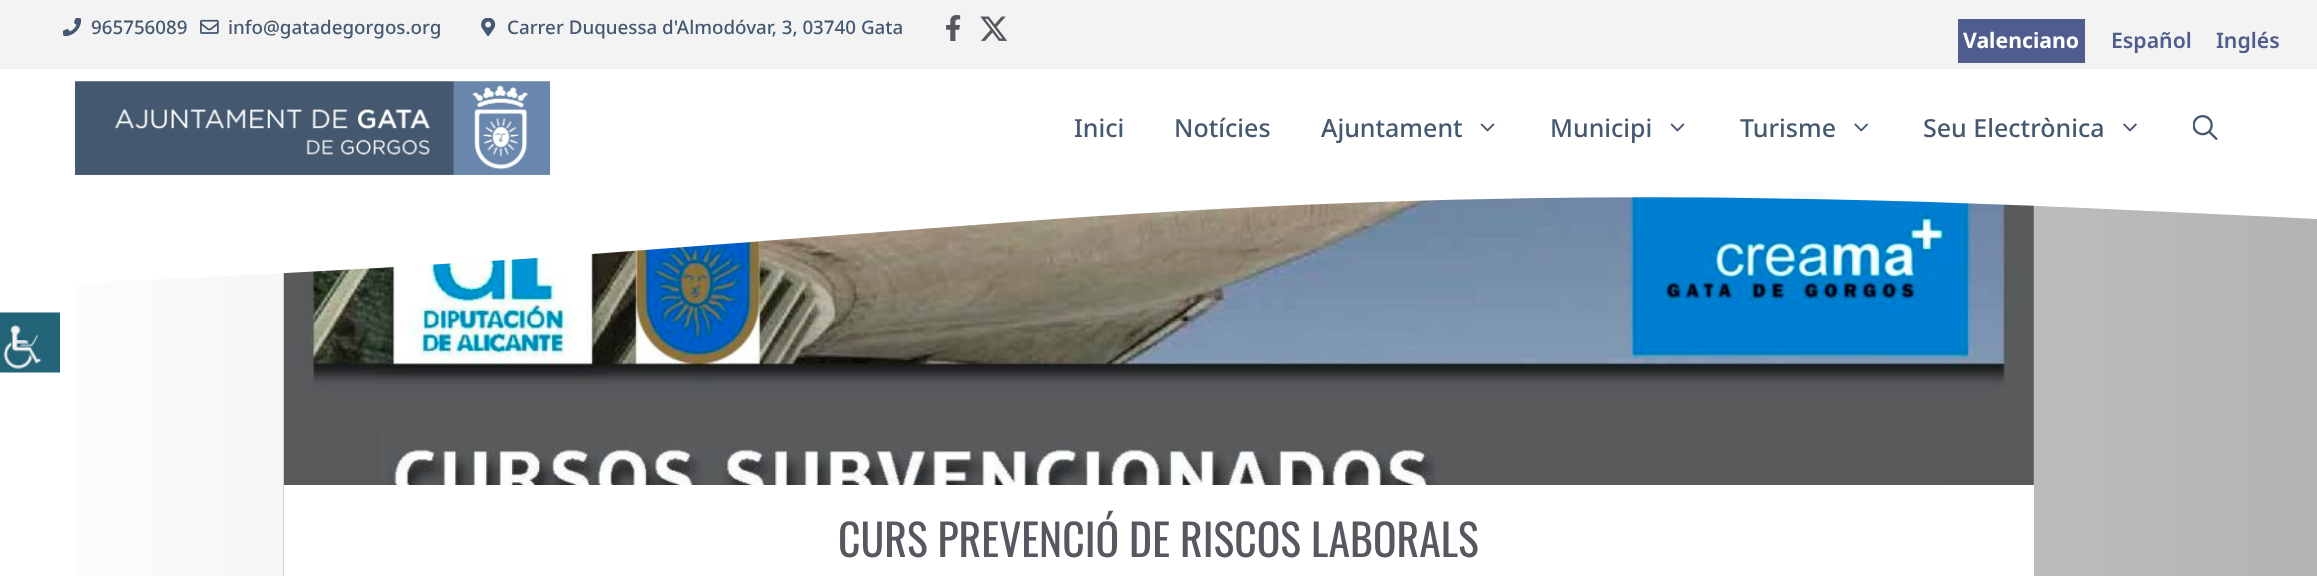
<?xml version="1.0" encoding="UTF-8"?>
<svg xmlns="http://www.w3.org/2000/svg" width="2317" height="576">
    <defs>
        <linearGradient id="g1" gradientUnits="userSpaceOnUse" x1="0" y1="428" x2="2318" y2="428"><stop offset="0" stop-color="#FFFFFF"/><stop offset="1" stop-color="#B3B3B3"/></linearGradient>
        <clipPath id="clip1"><rect x="0" y="186" width="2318" height="100"/></clipPath>
    </defs>
    <rect width="100%" height="100%" fill="#FFFFFF"/>
    <rect x="0" y="0" width="2317" height="69" fill="#F3F3F3"/>
    <image x="63" y="18" width="18" height="18" href="img_01.png"/>
    <text x="91" y="34" font-family="Noto Sans" font-size="18.75" font-weight="500" fill="#445870">965756089</text>
    <image x="200" y="19" width="19" height="15" href="img_02.png"/>
    <text x="228" y="34" font-family="Noto Sans" font-size="18.75" font-weight="500" fill="#445870">info@gatadegorgos.org</text>
    <image x="481" y="18" width="15" height="18" href="img_03.png"/>
    <text x="507" y="34" font-family="Noto Sans" font-size="18.75" font-weight="500" fill="#445870">Carrer Duquessa d'Almodóvar, 3, 03740 Gata</text>
    <image x="946" y="15" width="15" height="26" href="img_04.png"/>
    <image x="980" y="16" width="28" height="25" href="img_05.png"/>
    <rect x="1958" y="19" width="127" height="44" fill="#4F5C8D"/>
    <text x="1963" y="48" font-family="Noto Sans" font-size="21.25" font-weight="700" fill="#FFFFFF">Valenciano</text>
    <text x="2111" y="48" font-family="Noto Sans" font-size="21.25" font-weight="600" fill="#4F5C8D">Español</text>
    <text x="2216" y="48" font-family="Noto Sans" font-size="21.25" font-weight="600" fill="#4F5C8D">Inglés</text>
    <image x="75" y="81" width="475" height="94" href="img_06.png"/>
    <text x="1074" y="137" font-family="Noto Sans" font-size="25" font-weight="500" fill="#445870">Inici</text>
    <text x="1174" y="137" font-family="Noto Sans" font-size="25" font-weight="500" fill="#445870">Notícies</text>
    <text x="1321" y="137" font-family="Noto Sans" font-size="25" font-weight="500" fill="#445870">Ajuntament</text>
    <image x="1480" y="123" width="15" height="9" href="img_07.png"/>
    <text x="1550" y="137" font-family="Noto Sans" font-size="25" font-weight="500" fill="#445870">Municipi</text>
    <image x="1670" y="123" width="15" height="9" href="img_07.png"/>
    <text x="1740" y="137" font-family="Noto Sans" font-size="25" font-weight="500" fill="#445870">Turisme</text>
    <image x="1854" y="123" width="15" height="9" href="img_08.png"/>
    <text x="1923" y="137" font-family="Noto Sans" font-size="25" font-weight="500" fill="#445870">Seu Electrònica</text>
    <image x="2123" y="123" width="14" height="9" href="img_09.png"/>
    <image x="2193" y="115" width="25" height="25" href="img_10.png"/>
    <image x="0" y="312" width="60" height="61" href="img_11.png"/>
    <rect x="76" y="205" width="2241" height="371" fill="url(#g1)"/>
    <image x="283" y="197" width="1751" height="379" href="img_12.png"/>
    <g clip-path="url(#clip1)">
        <path d="M 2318 219 C 2149 211 1980 202 1811 199 C 1666 196 1521 197 1376 202 C 1255 206 1134 213 1014 222 L 579 255 C 386 269 193 278 -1 287 V 187 H 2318 Z" fill="#FFFFFF"/>
    </g>
    <rect x="284" y="485" width="1750" height="91" fill="#FFFFFF"/>
    <text x="838" y="557" font-family="Oswald" font-size="43.75" fill="#575760">CURS PREVENCIÓ DE RISCOS LABORALS</text>
</svg>
